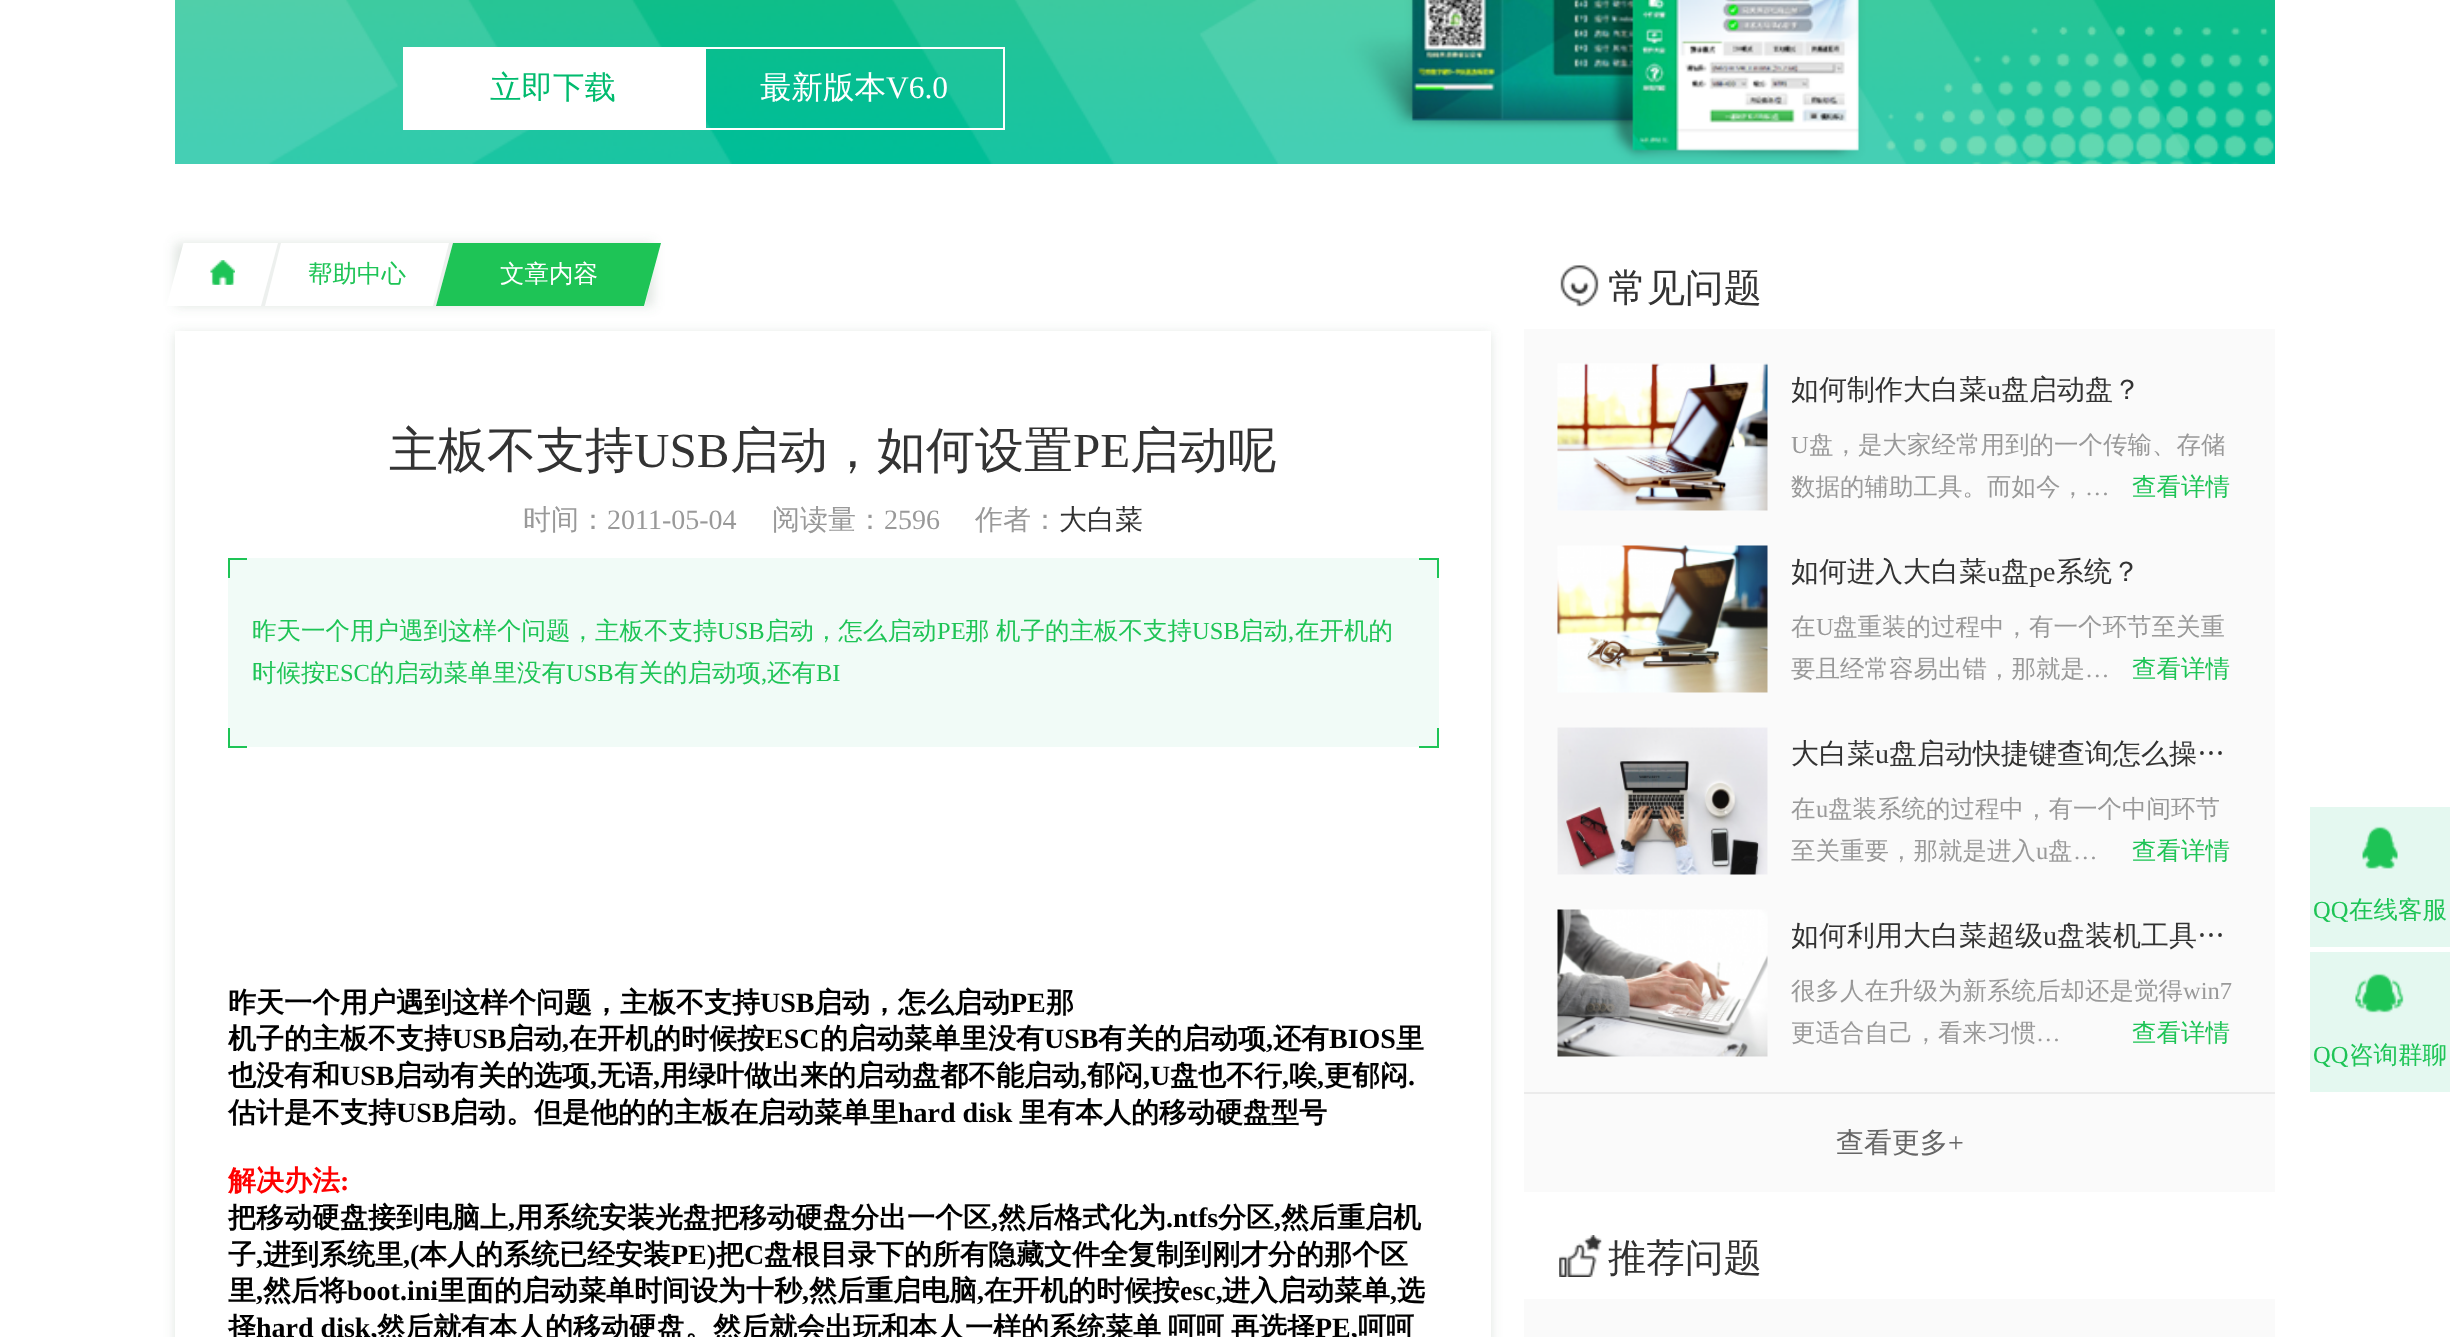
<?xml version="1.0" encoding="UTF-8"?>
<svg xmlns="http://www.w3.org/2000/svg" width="2450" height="1337">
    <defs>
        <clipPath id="clip1"><path d="M 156 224 H 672 V 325 H 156 Z M 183.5 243 H 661 L 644.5 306 H 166.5 Z" clip-rule="evenodd"/></clipPath>
        <filter id="blur1" x="-50%" y="-200%" width="200%" height="500%"><feGaussianBlur stdDeviation="6"/></filter>
        <clipPath id="clip2"><path d="M 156 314 H 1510 V 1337 H 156 Z M 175 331 H 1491 V 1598 H 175 Z" clip-rule="evenodd"/></clipPath>
        <clipPath id="clip3"><rect x="1792" y="373" width="446" height="37"/></clipPath>
        <clipPath id="clip4"><rect x="1792" y="555" width="446" height="37"/></clipPath>
        <clipPath id="clip5"><rect x="1792" y="919" width="446" height="37"/></clipPath>
    </defs>
    <rect width="100%" height="100%" fill="#FFFFFF"/>
    <image x="175" y="0" width="2100" height="164" href="img_01.png"/>
    <rect x="403" y="47" width="301" height="83" fill="#FFFFFF"/>
    <text x="490" y="98" font-family="WenQuanYi Zen Hei" font-size="31.5" font-weight="500" fill="#00BB6E">立即下载</text>
    <rect x="705" y="48" width="299" height="81" fill="none" stroke="#FFFFFF" stroke-width="2"/>
    <text x="760" y="98" font-family="WenQuanYi Zen Hei" font-size="31.5" font-weight="500" fill="#FFFFFF">最新版本</text>
    <text x="886" y="98" font-family="Liberation Serif" font-size="31.5" fill="#FFFFFF">V6.0</text>
    <g clip-path="url(#clip1)">
        <rect x="175" y="243" width="478" height="63" fill="#627F6B" fill-opacity="0.2" filter="url(#blur1)"/>
    </g>
    <path d="M 278 243 H 281 L 265 306 H 261 Z" fill="#EDF0EE"/>
    <image x="210" y="260" width="25" height="25" href="img_02.png"/>
    <path d="M 449 243 H 453 L 436 306 H 433 Z" fill="#EDF0EE"/>
    <text x="308" y="282" font-family="WenQuanYi Zen Hei" font-size="24.5" font-weight="500" fill="#1EC456">帮助中心</text>
    <path d="M 453 243 H 661 L 644 306 H 436 Z" fill="#1EC456"/>
    <text x="500" y="282" font-family="WenQuanYi Zen Hei" font-size="24.5" font-weight="500" fill="#FFFFFF">文章内容</text>
    <g clip-path="url(#clip2)">
        <rect x="175" y="333" width="1316" height="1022" fill="#627F6B" fill-opacity="0.2" filter="url(#blur1)"/>
    </g>
    <text x="389" y="467" font-family="WenQuanYi Zen Hei" font-size="49" font-weight="500" fill="#333333">主板不支持</text>
    <text x="634" y="467" font-family="Liberation Serif" font-size="49" fill="#333333">USB</text>
    <text x="730" y="467" font-family="WenQuanYi Zen Hei" font-size="49" font-weight="500" fill="#333333">启动，如何设置</text>
    <text x="1073" y="467" font-family="Liberation Serif" font-size="49" fill="#333333">PE</text>
    <text x="1130" y="467" font-family="WenQuanYi Zen Hei" font-size="49" font-weight="500" fill="#333333">启动呢</text>
    <text x="523" y="529" font-family="WenQuanYi Zen Hei" font-size="28" font-weight="500" fill="#999999">时间：</text>
    <text x="607" y="529" font-family="Liberation Serif" font-size="28" fill="#999999">2011-05-04</text>
    <text x="772" y="529" font-family="WenQuanYi Zen Hei" font-size="28" font-weight="500" fill="#999999">阅读量：</text>
    <text x="884" y="529" font-family="Liberation Serif" font-size="28" fill="#999999">2596</text>
    <text x="975" y="529" font-family="WenQuanYi Zen Hei" font-size="28" font-weight="500" fill="#999999">作者：</text>
    <text x="1059" y="529" font-family="WenQuanYi Zen Hei" font-size="28" font-weight="500" fill="#333333">大白菜</text>
    <rect x="228" y="558" width="1211" height="189" fill="#F1FBF7"/>
    <rect x="228" y="558" width="19" height="2" fill="#1EC456"/>
    <rect x="228" y="558" width="2" height="20" fill="#1EC456"/>
    <rect x="1419" y="558" width="20" height="2" fill="#1EC456"/>
    <rect x="1437" y="558" width="2" height="20" fill="#1EC456"/>
    <text x="252" y="639" font-family="WenQuanYi Zen Hei" font-size="24.5" font-weight="500" fill="#1EC456">昨天一个用户遇到这样个问题，主板不支持</text>
    <text x="717" y="639" font-family="Liberation Serif" font-size="24.5" fill="#1EC456">USB</text>
    <text x="765" y="639" font-family="WenQuanYi Zen Hei" font-size="24.5" font-weight="500" fill="#1EC456">启动，怎么启动</text>
    <text x="937" y="639" font-family="Liberation Serif" font-size="24.5" fill="#1EC456">PE</text>
    <text x="965" y="639" font-family="WenQuanYi Zen Hei" font-size="24.5" font-weight="500" fill="#1EC456">那</text>
    <text x="996" y="639" font-family="WenQuanYi Zen Hei" font-size="24.5" font-weight="500" fill="#1EC456">机子的主板不支持</text>
    <text x="1192" y="639" font-family="Liberation Serif" font-size="24.5" fill="#1EC456">USB</text>
    <text x="1239" y="639" font-family="WenQuanYi Zen Hei" font-size="24.5" font-weight="500" fill="#1EC456">启动</text>
    <text x="1288" y="639" font-family="Liberation Serif" font-size="24.5" fill="#1EC456">,</text>
    <text x="1295" y="639" font-family="WenQuanYi Zen Hei" font-size="24.5" font-weight="500" fill="#1EC456">在开机的</text>
    <text x="252" y="681" font-family="WenQuanYi Zen Hei" font-size="24.5" font-weight="500" fill="#1EC456">时候按</text>
    <text x="325" y="681" font-family="Liberation Serif" font-size="24.5" fill="#1EC456">ESC</text>
    <text x="370" y="681" font-family="WenQuanYi Zen Hei" font-size="24.5" font-weight="500" fill="#1EC456">的启动菜单里没有</text>
    <text x="566" y="681" font-family="Liberation Serif" font-size="24.5" fill="#1EC456">USB</text>
    <text x="614" y="681" font-family="WenQuanYi Zen Hei" font-size="24.5" font-weight="500" fill="#1EC456">有关的启动项</text>
    <text x="761" y="681" font-family="Liberation Serif" font-size="24.5" fill="#1EC456">,</text>
    <text x="767" y="681" font-family="WenQuanYi Zen Hei" font-size="24.5" font-weight="500" fill="#1EC456">还有</text>
    <text x="816" y="681" font-family="Liberation Serif" font-size="24.5" fill="#1EC456">BI</text>
    <rect x="228" y="746" width="19" height="2" fill="#1EC456"/>
    <rect x="228" y="728" width="2" height="19" fill="#1EC456"/>
    <rect x="1437" y="728" width="2" height="19" fill="#1EC456"/>
    <rect x="1419" y="746" width="20" height="2" fill="#1EC456"/>
    <text x="228" y="1012" font-family="WenQuanYi Zen Hei" font-size="28" font-weight="700" fill="#000000">昨天一个用户遇到这样个问题，主板不支持</text>
    <text x="760" y="1012" font-family="Liberation Serif" font-size="28" font-weight="700" fill="#000000">USB</text>
    <text x="814" y="1012" font-family="WenQuanYi Zen Hei" font-size="28" font-weight="700" fill="#000000">启动，怎么启动</text>
    <text x="1010" y="1012" font-family="Liberation Serif" font-size="28" font-weight="700" fill="#000000">PE</text>
    <text x="1046" y="1012" font-family="WenQuanYi Zen Hei" font-size="28" font-weight="700" fill="#000000">那</text>
    <text x="228" y="1048" font-family="WenQuanYi Zen Hei" font-size="28" font-weight="700" fill="#000000">机子的主板不支持</text>
    <text x="452" y="1048" font-family="Liberation Serif" font-size="28" font-weight="700" fill="#000000">USB</text>
    <text x="506" y="1048" font-family="WenQuanYi Zen Hei" font-size="28" font-weight="700" fill="#000000">启动</text>
    <text x="562" y="1048" font-family="Liberation Serif" font-size="28" font-weight="700" fill="#000000">,</text>
    <text x="569" y="1048" font-family="WenQuanYi Zen Hei" font-size="28" font-weight="700" fill="#000000">在开机的时候按</text>
    <text x="765" y="1048" font-family="Liberation Serif" font-size="28" font-weight="700" fill="#000000">ESC</text>
    <text x="820" y="1048" font-family="WenQuanYi Zen Hei" font-size="28" font-weight="700" fill="#000000">的启动菜单里没有</text>
    <text x="1044" y="1048" font-family="Liberation Serif" font-size="28" font-weight="700" fill="#000000">USB</text>
    <text x="1098" y="1048" font-family="WenQuanYi Zen Hei" font-size="28" font-weight="700" fill="#000000">有关的启动项</text>
    <text x="1266" y="1048" font-family="Liberation Serif" font-size="28" font-weight="700" fill="#000000">,</text>
    <text x="1273" y="1048" font-family="WenQuanYi Zen Hei" font-size="28" font-weight="700" fill="#000000">还有</text>
    <text x="1329" y="1048" font-family="Liberation Serif" font-size="28" font-weight="700" fill="#000000">BIOS</text>
    <text x="1396" y="1048" font-family="WenQuanYi Zen Hei" font-size="28" font-weight="700" fill="#000000">里</text>
    <text x="228" y="1085" font-family="WenQuanYi Zen Hei" font-size="28" font-weight="700" fill="#000000">也没有和</text>
    <text x="340" y="1085" font-family="Liberation Serif" font-size="28" font-weight="700" fill="#000000">USB</text>
    <text x="394" y="1085" font-family="WenQuanYi Zen Hei" font-size="28" font-weight="700" fill="#000000">启动有关的选项</text>
    <text x="590" y="1085" font-family="Liberation Serif" font-size="28" font-weight="700" fill="#000000">,</text>
    <text x="597" y="1085" font-family="WenQuanYi Zen Hei" font-size="28" font-weight="700" fill="#000000">无语</text>
    <text x="653" y="1085" font-family="Liberation Serif" font-size="28" font-weight="700" fill="#000000">,</text>
    <text x="660" y="1085" font-family="WenQuanYi Zen Hei" font-size="28" font-weight="700" fill="#000000">用绿叶做出来的启动盘都不能启动</text>
    <text x="1080" y="1085" font-family="Liberation Serif" font-size="28" font-weight="700" fill="#000000">,</text>
    <text x="1087" y="1085" font-family="WenQuanYi Zen Hei" font-size="28" font-weight="700" fill="#000000">郁闷</text>
    <text x="1143" y="1085" font-family="Liberation Serif" font-size="28" font-weight="700" fill="#000000">,U</text>
    <text x="1170" y="1085" font-family="WenQuanYi Zen Hei" font-size="28" font-weight="700" fill="#000000">盘也不行</text>
    <text x="1282" y="1085" font-family="Liberation Serif" font-size="28" font-weight="700" fill="#000000">,</text>
    <text x="1289" y="1085" font-family="WenQuanYi Zen Hei" font-size="28" font-weight="700" fill="#000000">唉</text>
    <text x="1317" y="1085" font-family="Liberation Serif" font-size="28" font-weight="700" fill="#000000">,</text>
    <text x="1324" y="1085" font-family="WenQuanYi Zen Hei" font-size="28" font-weight="700" fill="#000000">更郁闷</text>
    <text x="1408" y="1085" font-family="Liberation Serif" font-size="28" font-weight="700" fill="#000000">.</text>
    <text x="228" y="1122" font-family="WenQuanYi Zen Hei" font-size="28" font-weight="700" fill="#000000">估计是不支持</text>
    <text x="396" y="1122" font-family="Liberation Serif" font-size="28" font-weight="700" fill="#000000">USB</text>
    <text x="450" y="1122" font-family="WenQuanYi Zen Hei" font-size="28" font-weight="700" fill="#000000">启动。但是他的的主板在启动菜单里</text>
    <text x="898" y="1122" font-family="Liberation Serif" font-size="28" font-weight="700" fill="#000000">hard disk</text>
    <text x="1019" y="1122" font-family="WenQuanYi Zen Hei" font-size="28" font-weight="700" fill="#000000">里有本人的移动硬盘型号</text>
    <text x="228" y="1190" font-family="WenQuanYi Zen Hei" font-size="28" font-weight="700" fill="#FF0000">解决办法</text>
    <text x="340" y="1190" font-family="Liberation Serif" font-size="28" font-weight="700" fill="#FF0000">:</text>
    <text x="228" y="1227" font-family="WenQuanYi Zen Hei" font-size="28" font-weight="700" fill="#000000">把移动硬盘接到电脑上</text>
    <text x="508" y="1227" font-family="Liberation Serif" font-size="28" font-weight="700" fill="#000000">,</text>
    <text x="515" y="1227" font-family="WenQuanYi Zen Hei" font-size="28" font-weight="700" fill="#000000">用系统安装光盘把移动硬盘分出一个区</text>
    <text x="991" y="1227" font-family="Liberation Serif" font-size="28" font-weight="700" fill="#000000">,</text>
    <text x="998" y="1227" font-family="WenQuanYi Zen Hei" font-size="28" font-weight="700" fill="#000000">然后格式化为</text>
    <text x="1166" y="1227" font-family="Liberation Serif" font-size="28" font-weight="700" fill="#000000">.ntfs</text>
    <text x="1218" y="1227" font-family="WenQuanYi Zen Hei" font-size="28" font-weight="700" fill="#000000">分区</text>
    <text x="1274" y="1227" font-family="Liberation Serif" font-size="28" font-weight="700" fill="#000000">,</text>
    <text x="1281" y="1227" font-family="WenQuanYi Zen Hei" font-size="28" font-weight="700" fill="#000000">然后重启机</text>
    <text x="228" y="1264" font-family="WenQuanYi Zen Hei" font-size="28" font-weight="700" fill="#000000">子</text>
    <text x="256" y="1264" font-family="Liberation Serif" font-size="28" font-weight="700" fill="#000000">,</text>
    <text x="263" y="1264" font-family="WenQuanYi Zen Hei" font-size="28" font-weight="700" fill="#000000">进到系统里</text>
    <text x="403" y="1264" font-family="Liberation Serif" font-size="28" font-weight="700" fill="#000000">,(</text>
    <text x="419" y="1264" font-family="WenQuanYi Zen Hei" font-size="28" font-weight="700" fill="#000000">本人的系统已经安装</text>
    <text x="671" y="1264" font-family="Liberation Serif" font-size="28" font-weight="700" fill="#000000">PE)</text>
    <text x="716" y="1264" font-family="WenQuanYi Zen Hei" font-size="28" font-weight="700" fill="#000000">把</text>
    <text x="744" y="1264" font-family="Liberation Serif" font-size="28" font-weight="700" fill="#000000">C</text>
    <text x="764" y="1264" font-family="WenQuanYi Zen Hei" font-size="28" font-weight="700" fill="#000000">盘根目录下的所有隐藏文件全复制到刚才分的那个区</text>
    <text x="228" y="1300" font-family="WenQuanYi Zen Hei" font-size="28" font-weight="700" fill="#000000">里</text>
    <text x="256" y="1300" font-family="Liberation Serif" font-size="28" font-weight="700" fill="#000000">,</text>
    <text x="263" y="1300" font-family="WenQuanYi Zen Hei" font-size="28" font-weight="700" fill="#000000">然后将</text>
    <text x="347" y="1300" font-family="Liberation Serif" font-size="28" font-weight="700" fill="#000000">boot.ini</text>
    <text x="438" y="1300" font-family="WenQuanYi Zen Hei" font-size="28" font-weight="700" fill="#000000">里面的启动菜单时间设为十秒</text>
    <text x="802" y="1300" font-family="Liberation Serif" font-size="28" font-weight="700" fill="#000000">,</text>
    <text x="809" y="1300" font-family="WenQuanYi Zen Hei" font-size="28" font-weight="700" fill="#000000">然后重启电脑</text>
    <text x="977" y="1300" font-family="Liberation Serif" font-size="28" font-weight="700" fill="#000000">,</text>
    <text x="984" y="1300" font-family="WenQuanYi Zen Hei" font-size="28" font-weight="700" fill="#000000">在开机的时候按</text>
    <text x="1180" y="1300" font-family="Liberation Serif" font-size="28" font-weight="700" fill="#000000">esc,</text>
    <text x="1222" y="1300" font-family="WenQuanYi Zen Hei" font-size="28" font-weight="700" fill="#000000">进入启动菜单</text>
    <text x="1390" y="1300" font-family="Liberation Serif" font-size="28" font-weight="700" fill="#000000">,</text>
    <text x="1397" y="1300" font-family="WenQuanYi Zen Hei" font-size="28" font-weight="700" fill="#000000">选</text>
    <text x="228" y="1337" font-family="WenQuanYi Zen Hei" font-size="28" font-weight="700" fill="#000000">择</text>
    <text x="256" y="1337" font-family="Liberation Serif" font-size="28" font-weight="700" fill="#000000">hard disk,</text>
    <text x="377" y="1337" font-family="WenQuanYi Zen Hei" font-size="28" font-weight="700" fill="#000000">然后就有本人的移动硬盘。然后就会出玩和本人一样的系统菜单</text>
    <text x="1168" y="1337" font-family="WenQuanYi Zen Hei" font-size="28" font-weight="700" fill="#000000">呵呵</text>
    <text x="1231" y="1337" font-family="WenQuanYi Zen Hei" font-size="28" font-weight="700" fill="#000000">再选择</text>
    <text x="1315" y="1337" font-family="Liberation Serif" font-size="28" font-weight="700" fill="#000000">PE,</text>
    <text x="1358" y="1337" font-family="WenQuanYi Zen Hei" font-size="28" font-weight="700" fill="#000000">呵呵</text>
    <image x="1560" y="265" width="39" height="42" href="img_03.png"/>
    <text x="1608" y="301" font-family="WenQuanYi Zen Hei" font-size="38.5" font-weight="500" fill="#333333">常见问题</text>
    <rect x="1524" y="329" width="751" height="863" fill="#FAFAFA"/>
    <image x="1557" y="363" width="211" height="148" href="img_04.png"/>
    <g clip-path="url(#clip3)">
        <text x="1791" y="399" font-family="WenQuanYi Zen Hei" font-size="28" font-weight="500" fill="#333333">如何制作大白菜</text>
    </g>
    <text x="1987" y="399" font-family="Liberation Serif" font-size="28" fill="#333333">u</text>
    <text x="2001" y="399" font-family="WenQuanYi Zen Hei" font-size="28" font-weight="500" fill="#333333">盘启动盘？</text>
    <text x="1791" y="453" font-family="Liberation Serif" font-size="24.5" fill="#999999">U</text>
    <text x="1809" y="453" font-family="WenQuanYi Zen Hei" font-size="24.5" font-weight="500" fill="#999999">盘，是大家经常用到的一个传输、存储</text>
    <text x="1791" y="495" font-family="WenQuanYi Zen Hei" font-size="24.5" font-weight="500" fill="#999999">数据的辅助工具。而如今，</text>
    <text x="2085" y="495" font-family="Liberation Serif" font-size="24.5" fill="#999999">…</text>
    <text x="2132" y="495" font-family="WenQuanYi Zen Hei" font-size="24.5" font-weight="500" fill="#1EC456">查看详情</text>
    <image x="1557" y="545" width="211" height="148" href="img_05.png"/>
    <g clip-path="url(#clip4)">
        <text x="1791" y="581" font-family="WenQuanYi Zen Hei" font-size="28" font-weight="500" fill="#333333">如何进入大白菜</text>
    </g>
    <text x="1987" y="581" font-family="Liberation Serif" font-size="28" fill="#333333">u</text>
    <text x="2001" y="581" font-family="WenQuanYi Zen Hei" font-size="28" font-weight="500" fill="#333333">盘</text>
    <text x="2029" y="581" font-family="Liberation Serif" font-size="28" fill="#333333">pe</text>
    <text x="2056" y="581" font-family="WenQuanYi Zen Hei" font-size="28" font-weight="500" fill="#333333">系统？</text>
    <text x="1791" y="635" font-family="WenQuanYi Zen Hei" font-size="24.5" font-weight="500" fill="#999999">在</text>
    <text x="1816" y="635" font-family="Liberation Serif" font-size="24.5" fill="#999999">U</text>
    <text x="1833" y="635" font-family="WenQuanYi Zen Hei" font-size="24.5" font-weight="500" fill="#999999">盘重装的过程中，有一个环节至关重</text>
    <text x="1791" y="677" font-family="WenQuanYi Zen Hei" font-size="24.5" font-weight="500" fill="#999999">要且经常容易出错，那就是</text>
    <text x="2085" y="677" font-family="Liberation Serif" font-size="24.5" fill="#999999">…</text>
    <text x="2132" y="677" font-family="WenQuanYi Zen Hei" font-size="24.5" font-weight="500" fill="#1EC456">查看详情</text>
    <image x="1557" y="727" width="211" height="148" href="img_06.png"/>
    <text x="1791" y="763" font-family="WenQuanYi Zen Hei" font-size="28" font-weight="500" fill="#333333">大白菜</text>
    <text x="1875" y="763" font-family="Liberation Serif" font-size="28" fill="#333333">u</text>
    <text x="1889" y="763" font-family="WenQuanYi Zen Hei" font-size="28" font-weight="500" fill="#333333">盘启动快捷键查询怎么操…</text>
    <text x="1791" y="817" font-family="WenQuanYi Zen Hei" font-size="24.5" font-weight="500" fill="#999999">在</text>
    <text x="1816" y="817" font-family="Liberation Serif" font-size="24.5" fill="#999999">u</text>
    <text x="1828" y="817" font-family="WenQuanYi Zen Hei" font-size="24.5" font-weight="500" fill="#999999">盘装系统的过程中，有一个中间环节</text>
    <text x="1791" y="859" font-family="WenQuanYi Zen Hei" font-size="24.5" font-weight="500" fill="#999999">至关重要，那就是进入</text>
    <text x="2036" y="859" font-family="Liberation Serif" font-size="24.5" fill="#999999">u</text>
    <text x="2048" y="859" font-family="WenQuanYi Zen Hei" font-size="24.5" font-weight="500" fill="#999999">盘</text>
    <text x="2073" y="859" font-family="Liberation Serif" font-size="24.5" fill="#999999">…</text>
    <text x="2132" y="859" font-family="WenQuanYi Zen Hei" font-size="24.5" font-weight="500" fill="#1EC456">查看详情</text>
    <image x="1557" y="909" width="211" height="148" href="img_07.png"/>
    <g clip-path="url(#clip5)">
        <text x="1791" y="945" font-family="WenQuanYi Zen Hei" font-size="28" font-weight="500" fill="#333333">如何利用大白菜超级</text>
    </g>
    <text x="2043" y="945" font-family="Liberation Serif" font-size="28" fill="#333333">u</text>
    <text x="2057" y="945" font-family="WenQuanYi Zen Hei" font-size="28" font-weight="500" fill="#333333">盘装机工具…</text>
    <text x="1791" y="999" font-family="WenQuanYi Zen Hei" font-size="24.5" font-weight="500" fill="#999999">很多人在升级为新系统后却还是觉得</text>
    <text x="2183" y="999" font-family="Liberation Serif" font-size="24.5" fill="#999999">win7</text>
    <text x="1791" y="1041" font-family="WenQuanYi Zen Hei" font-size="24.5" font-weight="500" fill="#999999">更适合自己，看来习惯</text>
    <text x="2036" y="1041" font-family="Liberation Serif" font-size="24.5" fill="#999999">…</text>
    <text x="2132" y="1041" font-family="WenQuanYi Zen Hei" font-size="24.5" font-weight="500" fill="#1EC456">查看详情</text>
    <rect x="1524" y="1092" width="751" height="2" fill="#EBEBEB"/>
    <text x="1836" y="1152" font-family="WenQuanYi Zen Hei" font-size="28" font-weight="500" fill="#666666">查看更多</text>
    <text x="1948" y="1152" font-family="Liberation Serif" font-size="28" fill="#666666">+</text>
    <image x="1559" y="1235" width="43" height="42" href="img_08.png"/>
    <text x="1608" y="1271" font-family="WenQuanYi Zen Hei" font-size="38.5" font-weight="500" fill="#333333">推荐问题</text>
    <rect x="1524" y="1299" width="751" height="38" fill="#FAFAFA"/>
    <rect x="2310" y="807" width="140" height="140" fill="#E4F8F0"/>
    <image x="2362" y="826" width="36" height="43" href="img_09.png"/>
    <text x="2313" y="918" font-family="Liberation Serif" font-size="24.5" fill="#1EC456">QQ</text>
    <text x="2349" y="918" font-family="WenQuanYi Zen Hei" font-size="24.5" font-weight="500" fill="#1EC456">在线客服</text>
    <rect x="2310" y="952" width="140" height="140" fill="#E4F8F0"/>
    <image x="2355" y="973" width="49" height="40" href="img_10.png"/>
    <text x="2313" y="1063" font-family="Liberation Serif" font-size="24.5" fill="#1EC456">QQ</text>
    <text x="2349" y="1063" font-family="WenQuanYi Zen Hei" font-size="24.5" font-weight="500" fill="#1EC456">咨询群聊</text>
</svg>
